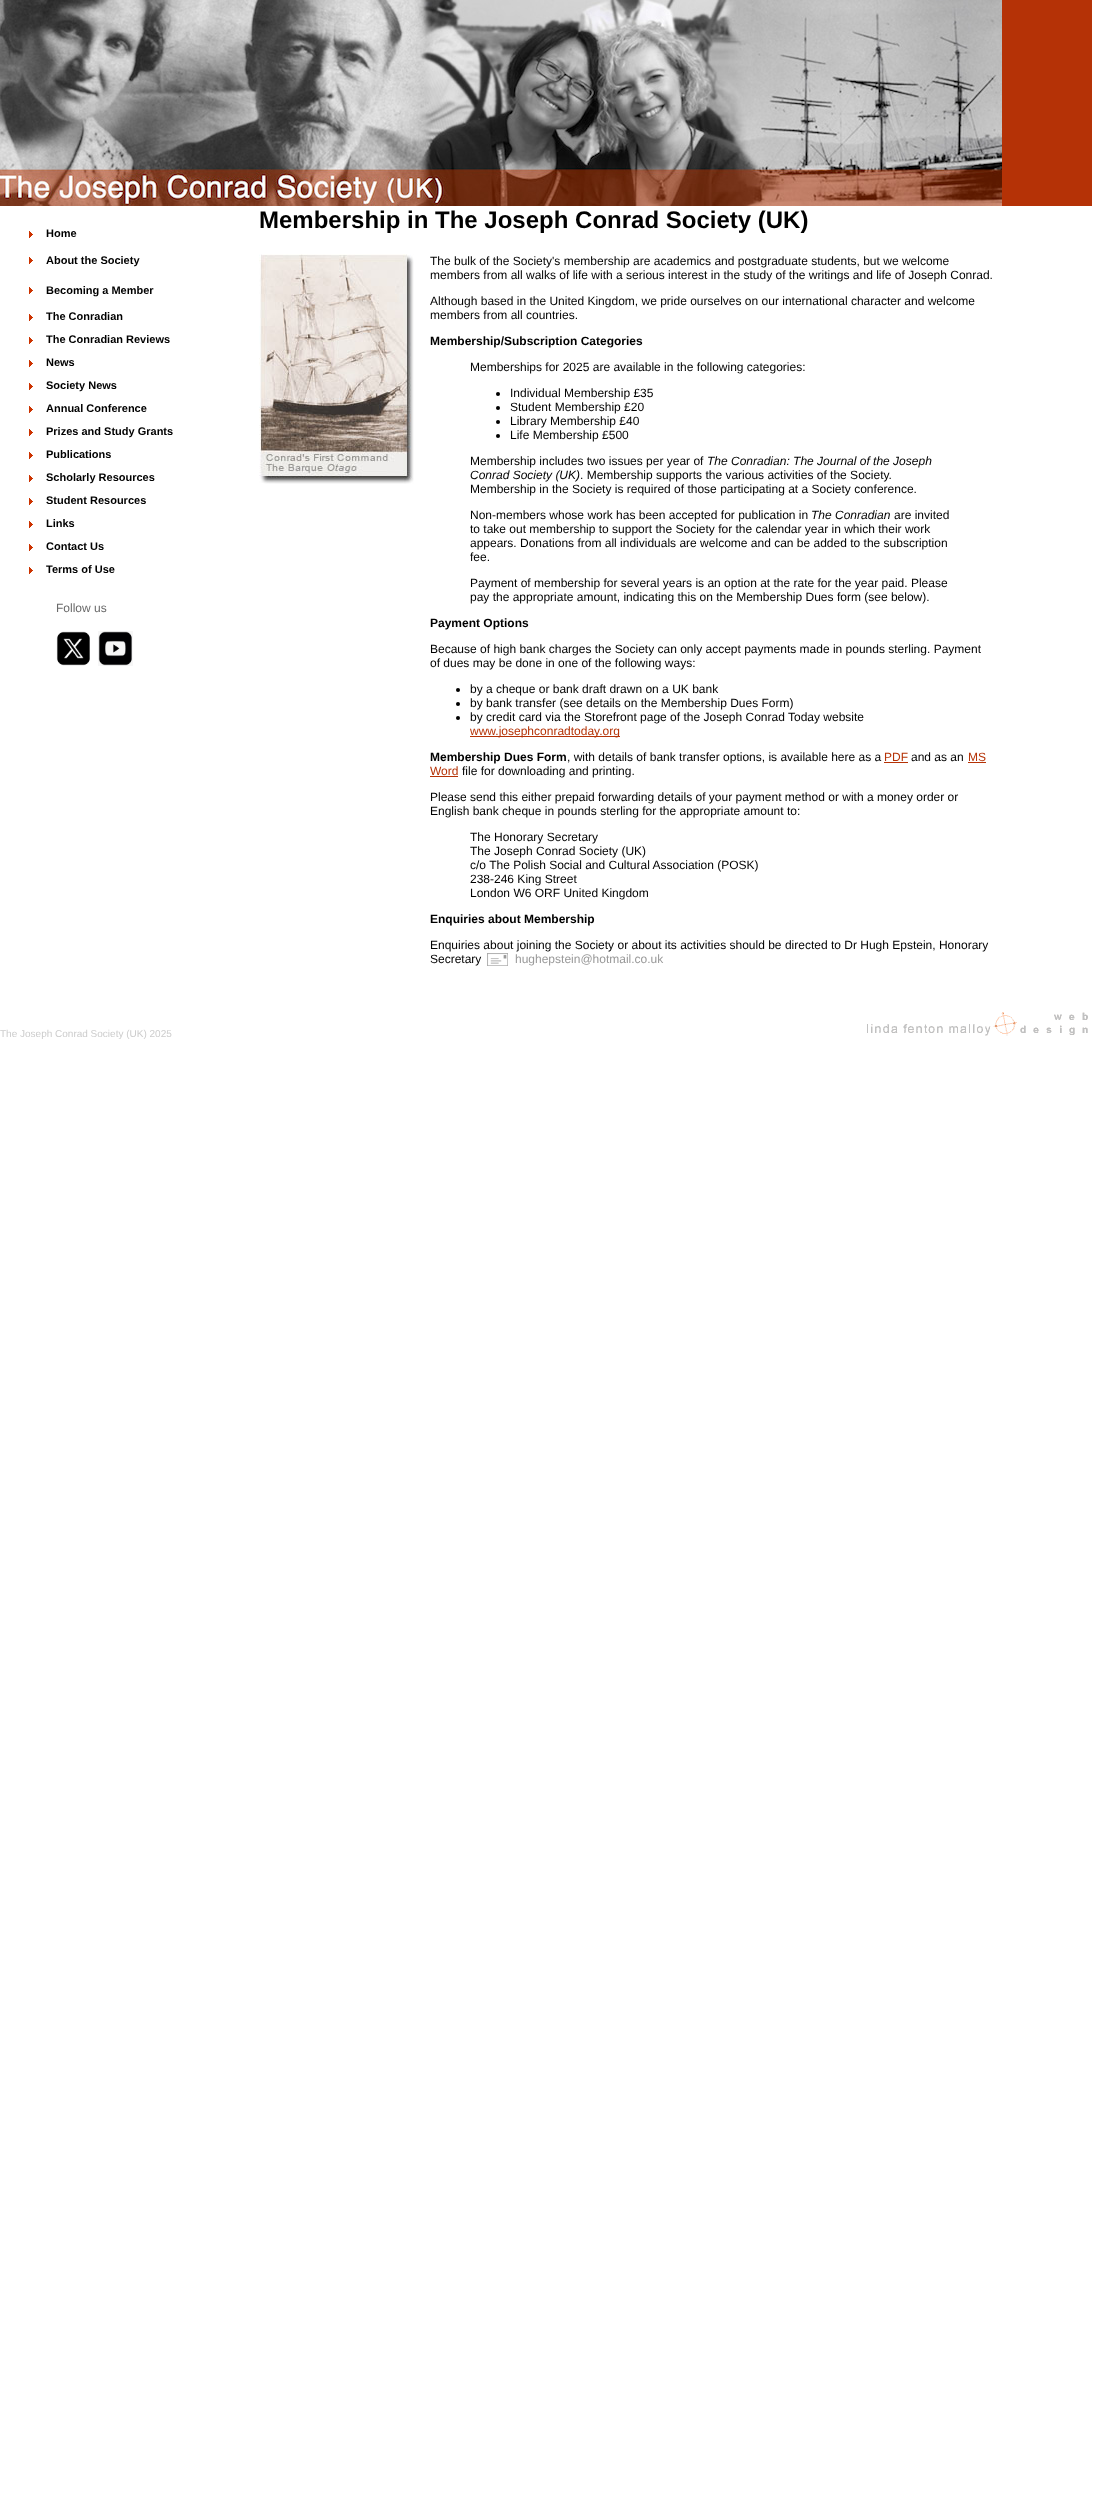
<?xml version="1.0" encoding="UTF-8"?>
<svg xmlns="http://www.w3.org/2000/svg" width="1100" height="2507">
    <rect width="100%" height="100%" fill="#FFFFFF"/>
    <rect x="1002" y="0" width="90" height="206" fill="#B53206"/>
    <image x="0" y="0" width="1002" height="206" href="img_01.png"/>
    <image x="29" y="231" width="4" height="7" href="img_02.png"/>
    <text x="46" y="237" font-family="Liberation Sans" font-size="11" font-weight="700" fill="#000000">Home</text>
    <image x="29" y="257" width="4" height="7" href="img_02.png"/>
    <text x="46" y="264" font-family="Liberation Sans" font-size="11" font-weight="700" fill="#000000">About the Society</text>
    <image x="29" y="287" width="4" height="7" href="img_02.png"/>
    <text x="46" y="294" font-family="Liberation Sans" font-size="11" font-weight="700" fill="#000000">Becoming a Member</text>
    <image x="29" y="314" width="4" height="7" href="img_02.png"/>
    <text x="46" y="320" font-family="Liberation Sans" font-size="11" font-weight="700" fill="#000000">The Conradian</text>
    <image x="29" y="337" width="4" height="7" href="img_02.png"/>
    <text x="46" y="343" font-family="Liberation Sans" font-size="11" font-weight="700" fill="#000000">The Conradian Reviews</text>
    <image x="29" y="360" width="4" height="7" href="img_02.png"/>
    <text x="46" y="366" font-family="Liberation Sans" font-size="11" font-weight="700" fill="#000000">News</text>
    <image x="29" y="383" width="4" height="7" href="img_02.png"/>
    <text x="46" y="389" font-family="Liberation Sans" font-size="11" font-weight="700" fill="#000000">Society News</text>
    <image x="29" y="406" width="4" height="7" href="img_02.png"/>
    <text x="46" y="412" font-family="Liberation Sans" font-size="11" font-weight="700" fill="#000000">Annual Conference</text>
    <image x="29" y="429" width="4" height="7" href="img_02.png"/>
    <text x="46" y="435" font-family="Liberation Sans" font-size="11" font-weight="700" fill="#000000">Prizes and Study Grants</text>
    <image x="29" y="452" width="4" height="7" href="img_02.png"/>
    <text x="46" y="458" font-family="Liberation Sans" font-size="11" font-weight="700" fill="#000000">Publications</text>
    <image x="29" y="475" width="4" height="7" href="img_02.png"/>
    <text x="46" y="481" font-family="Liberation Sans" font-size="11" font-weight="700" fill="#000000">Scholarly Resources</text>
    <image x="29" y="498" width="4" height="7" href="img_02.png"/>
    <text x="46" y="504" font-family="Liberation Sans" font-size="11" font-weight="700" fill="#000000">Student Resources</text>
    <image x="29" y="521" width="4" height="7" href="img_02.png"/>
    <text x="46" y="527" font-family="Liberation Sans" font-size="11" font-weight="700" fill="#000000">Links</text>
    <image x="29" y="544" width="4" height="7" href="img_02.png"/>
    <text x="46" y="550" font-family="Liberation Sans" font-size="11" font-weight="700" fill="#000000">Contact Us</text>
    <image x="29" y="567" width="4" height="7" href="img_02.png"/>
    <text x="46" y="573" font-family="Liberation Sans" font-size="11" font-weight="700" fill="#000000">Terms of Use</text>
    <text x="56" y="612" font-family="Liberation Sans" font-size="12" fill="#696969">Follow us</text>
    <image x="56" y="631" width="34" height="35" href="img_03.png"/>
    <image x="98" y="631" width="35" height="35" href="img_04.png"/>
    <text x="259" y="228" font-family="Liberation Sans" font-size="24" font-weight="700" fill="#000000">Membership in The Joseph Conrad Society (UK)</text>
    <image x="259" y="254" width="155" height="230" href="img_05.png"/>
    <text font-family="Liberation Sans" font-size="12" fill="#000000">
        <tspan x="430" y="265">The bulk of the Society's membership are academics and postgraduate students, but we welcome</tspan>
        <tspan x="430" y="279">members from all walks of life with a serious interest in the study of the writings and life of Joseph Conrad.</tspan>
    </text>
    <text font-family="Liberation Sans" font-size="12" fill="#000000">
        <tspan x="430" y="305">Although based in the United Kingdom, we pride ourselves on our international character and welcome</tspan>
        <tspan x="430" y="319">members from all countries.</tspan>
    </text>
    <text x="430" y="345" font-family="Liberation Sans" font-size="12" font-weight="700" fill="#000000">Membership/Subscription Categories</text>
    <text x="470" y="371" font-family="Liberation Sans" font-size="12" fill="#000000">Memberships for 2025 are available in the following categories:</text>
    <circle cx="498" cy="394" r="2" fill="#000000"/>
    <text x="510" y="397" font-family="Liberation Sans" font-size="12" fill="#000000">Individual Membership £35</text>
    <circle cx="498" cy="408" r="2" fill="#000000"/>
    <text x="510" y="411" font-family="Liberation Sans" font-size="12" fill="#000000">Student Membership £20</text>
    <circle cx="498" cy="422" r="2" fill="#000000"/>
    <text x="510" y="425" font-family="Liberation Sans" font-size="12" fill="#000000">Library Membership £40</text>
    <circle cx="498" cy="436" r="2" fill="#000000"/>
    <text x="510" y="439" font-family="Liberation Sans" font-size="12" fill="#000000">Life Membership £500</text>
    <text x="470" y="465" font-family="Liberation Sans" font-size="12" fill="#000000">Membership includes two issues per year of</text>
    <text x="707" y="465" font-family="Liberation Sans" font-size="12" font-style="italic" fill="#000000">The Conradian: The Journal of the Joseph</text>
    <text x="470" y="479" font-family="Liberation Sans" font-size="12" font-style="italic" fill="#000000">Conrad Society (UK)</text>
    <text x="580" y="479" font-family="Liberation Sans" font-size="12" fill="#000000">. Membership supports the various activities of the Society.</text>
    <text x="470" y="493" font-family="Liberation Sans" font-size="12" fill="#000000">Membership in the Society is required of those participating at a Society conference.</text>
    <text x="470" y="519" font-family="Liberation Sans" font-size="12" fill="#000000">Non-members whose work has been accepted for publication in</text>
    <text x="811" y="519" font-family="Liberation Sans" font-size="12" font-style="italic" fill="#000000">The Conradian</text>
    <text x="894" y="519" font-family="Liberation Sans" font-size="12" fill="#000000">are invited</text>
    <text font-family="Liberation Sans" font-size="12" fill="#000000">
        <tspan x="470" y="533">to take out membership to support the Society for the calendar year in which their work</tspan>
        <tspan x="470" y="547">appears. Donations from all individuals are welcome and can be added to the subscription</tspan>
        <tspan x="470" y="561">fee.</tspan>
    </text>
    <text font-family="Liberation Sans" font-size="12" fill="#000000">
        <tspan x="470" y="587">Payment of membership for several years is an option at the rate for the year paid. Please</tspan>
        <tspan x="470" y="601">pay the appropriate amount, indicating this on the Membership Dues form (see below).</tspan>
    </text>
    <text x="430" y="627" font-family="Liberation Sans" font-size="12" font-weight="700" fill="#000000">Payment Options</text>
    <text font-family="Liberation Sans" font-size="12" fill="#000000">
        <tspan x="430" y="653">Because of high bank charges the Society can only accept payments made in pounds sterling. Payment</tspan>
        <tspan x="430" y="667">of dues may be done in one of the following ways:</tspan>
    </text>
    <circle cx="458" cy="690" r="2" fill="#000000"/>
    <text x="470" y="693" font-family="Liberation Sans" font-size="12" fill="#000000">by a cheque or bank draft drawn on a UK bank</text>
    <circle cx="458" cy="704" r="2" fill="#000000"/>
    <text x="470" y="707" font-family="Liberation Sans" font-size="12" fill="#000000">by bank transfer (see details on the Membership Dues Form)</text>
    <circle cx="458" cy="718" r="2" fill="#000000"/>
    <text x="470" y="721" font-family="Liberation Sans" font-size="12" fill="#000000">by credit card via the Storefront page of the Joseph Conrad Today website</text>
    <rect x="470" y="736" width="150" height="1" fill="#B53206"/>
    <text x="470" y="735" font-family="Liberation Sans" font-size="12" fill="#B53206">www.josephconradtoday.org</text>
    <text x="430" y="761" font-family="Liberation Sans" font-size="12" font-weight="700" fill="#000000">Membership Dues Form</text>
    <text x="567" y="761" font-family="Liberation Sans" font-size="12" fill="#000000">, with details of bank transfer options, is available here as a</text>
    <text x="884" y="761" font-family="Liberation Sans" font-size="12" fill="#B53206">PDF</text>
    <rect x="884" y="762" width="24" height="1" fill="#B53206"/>
    <text x="911" y="761" font-family="Liberation Sans" font-size="12" fill="#000000">and as an</text>
    <text x="968" y="761" font-family="Liberation Sans" font-size="12" fill="#B53206">MS</text>
    <rect x="968" y="762" width="18" height="1" fill="#B53206"/>
    <text x="430" y="775" font-family="Liberation Sans" font-size="12" fill="#B53206">Word</text>
    <rect x="430" y="776" width="28" height="1" fill="#B53206"/>
    <text x="462" y="775" font-family="Liberation Sans" font-size="12" fill="#000000">file for downloading and printing.</text>
    <text font-family="Liberation Sans" font-size="12" fill="#000000">
        <tspan x="430" y="801">Please send this either prepaid forwarding details of your payment method or with a money order or</tspan>
        <tspan x="430" y="815">English bank cheque in pounds sterling for the appropriate amount to:</tspan>
    </text>
    <text font-family="Liberation Sans" font-size="12" fill="#000000">
        <tspan x="470" y="841">The Honorary Secretary</tspan>
        <tspan x="470" y="855">The Joseph Conrad Society (UK)</tspan>
        <tspan x="470" y="869">c/o The Polish Social and Cultural Association (POSK)</tspan>
        <tspan x="470" y="883">238-246 King Street</tspan>
        <tspan x="470" y="897">London W6 ORF United Kingdom</tspan>
    </text>
    <text x="430" y="923" font-family="Liberation Sans" font-size="12" font-weight="700" fill="#000000">Enquiries about Membership</text>
    <text font-family="Liberation Sans" font-size="12" fill="#000000">
        <tspan x="430" y="949">Enquiries about joining the Society or about its activities should be directed to Dr Hugh Epstein, Honorary</tspan>
        <tspan x="430" y="963">Secretary</tspan>
    </text>
    <image x="487" y="953" width="21" height="13" href="img_06.png"/>
    <text x="515" y="963" font-family="Liberation Sans" font-size="12" fill="#999999">hughepstein@hotmail.co.uk</text>
    <text x="0" y="1037" font-family="Liberation Sans" font-size="10" fill="#CCCCCC">The Joseph Conrad Society (UK) 2025</text>
    <image x="867" y="1012" width="221" height="24" href="img_07.png"/>
</svg>
